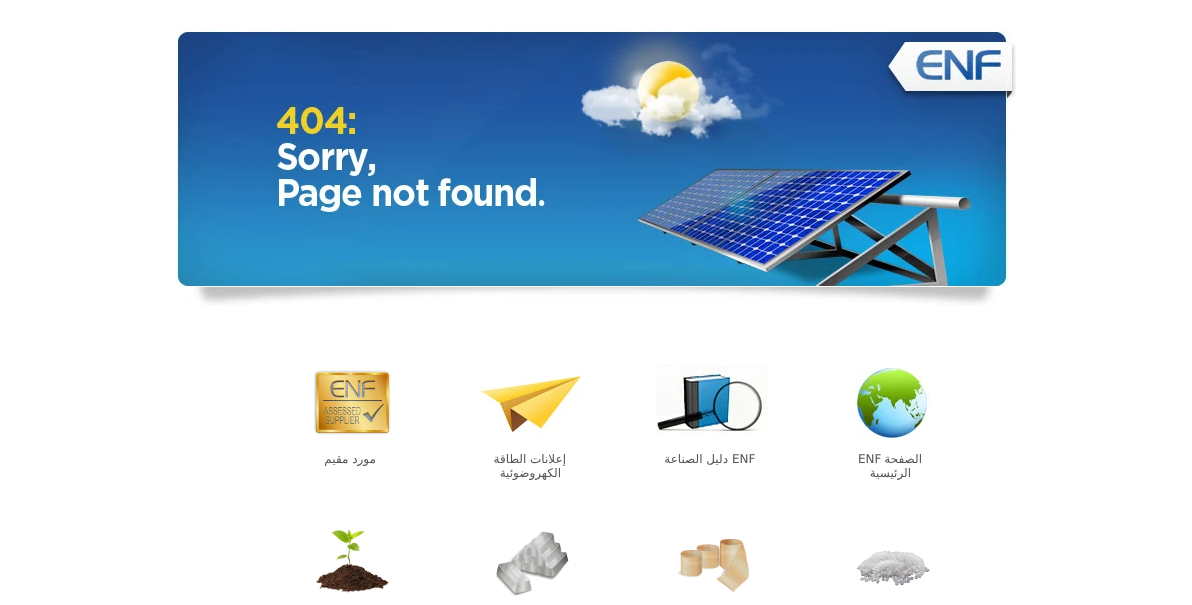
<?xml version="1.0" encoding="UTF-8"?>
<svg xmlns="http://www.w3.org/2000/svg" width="1192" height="605">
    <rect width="100%" height="100%" fill="#FFFFFF"/>
    <image x="177" y="30" width="839" height="276" href="img_01.png"/>
    <image x="854" y="367" width="76" height="73" href="img_02.png"/>
    <text x="922" y="463" font-family="DejaVu Sans" font-size="12" direction="rtl" fill="#555555">الصفحة</text>
    <text x="858" y="463" font-family="DejaVu Sans" font-size="12" fill="#555555">ENF</text>
    <text x="911" y="477" font-family="DejaVu Sans" font-size="12" direction="rtl" fill="#555555">الرئيسية</text>
    <image x="656" y="365" width="112" height="69" href="img_03.png"/>
    <text x="732" y="463" font-family="DejaVu Sans" font-size="12" fill="#555555">ENF</text>
    <text x="728" y="463" font-family="DejaVu Sans" font-size="12" direction="rtl" fill="#555555">دليل الصناعة</text>
    <image x="478" y="371" width="110" height="63" href="img_04.png"/>
    <text x="566" y="463" font-family="DejaVu Sans" font-size="12" direction="rtl" fill="#555555">إعلانات الطاقة</text>
    <text x="561" y="477" font-family="DejaVu Sans" font-size="12" direction="rtl" fill="#555555">الكهروضوئية</text>
    <image x="314" y="370" width="77" height="65" href="img_05.png"/>
    <text x="376" y="463" font-family="DejaVu Sans" font-size="12" direction="rtl" fill="#555555">مورد مقيم</text>
    <image x="856" y="550" width="74" height="36" href="img_06.png"/>
    <image x="677" y="539" width="72" height="53" href="img_07.png"/>
    <image x="496" y="531" width="73" height="65" href="img_08.png"/>
    <image x="316" y="529" width="73" height="64" href="img_09.png"/>
</svg>
